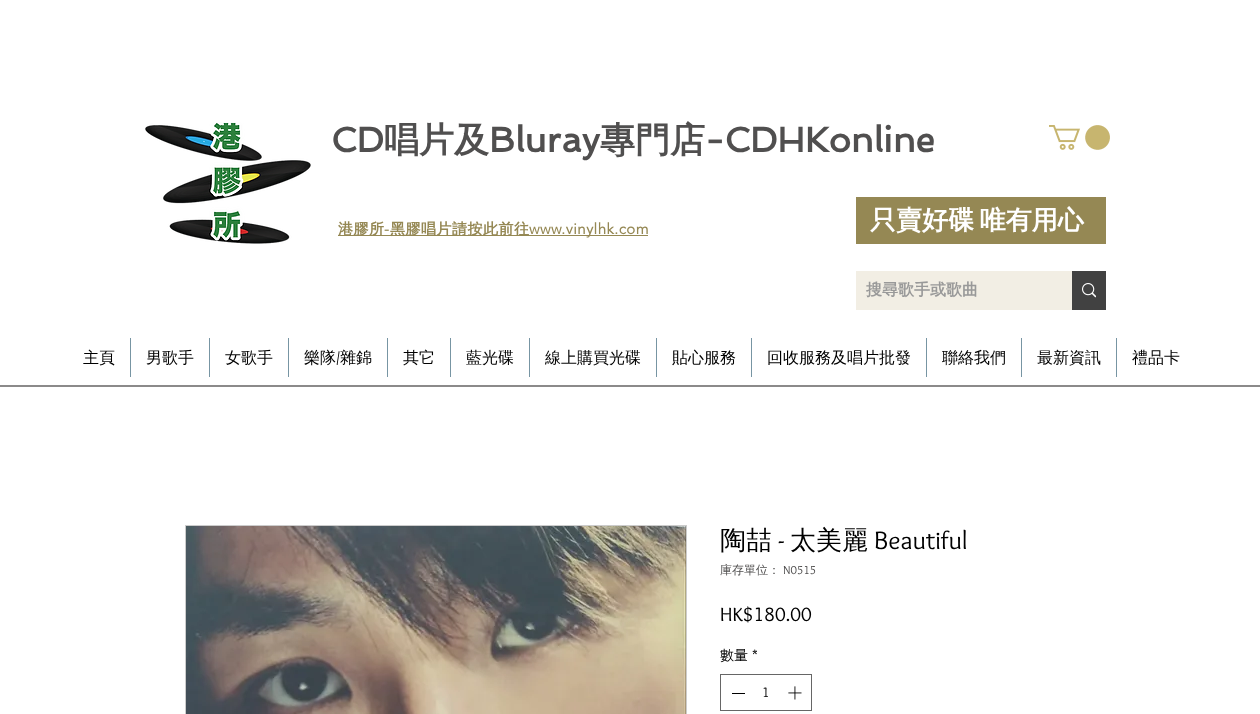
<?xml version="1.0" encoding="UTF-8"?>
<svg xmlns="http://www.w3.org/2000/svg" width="1260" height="714">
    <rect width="100%" height="100%" fill="#FFFFFF"/>
    <image x="145" y="122" width="166" height="122" href="img_01.png"/>
    <text x="331" y="152" font-family="Spinnaker" font-size="35" font-weight="700" fill="#504F4F">CD</text>
    <text x="384" y="152" font-family="WenQuanYi Zen Hei" font-size="35" font-weight="700" fill="#504F4F">唱片及</text>
    <text x="489" y="152" font-family="Spinnaker" font-size="35" font-weight="700" fill="#504F4F">Bluray</text>
    <text x="600" y="152" font-family="WenQuanYi Zen Hei" font-size="35" font-weight="700" fill="#504F4F">專門店</text>
    <text x="705" y="152" font-family="Spinnaker" font-size="35" font-weight="700" fill="#504F4F">-CDHKonline</text>
    <image x="1049" y="125" width="61" height="25" href="img_02.png"/>
    <rect x="856" y="197" width="250" height="47" fill="#958854"/>
    <rect x="338" y="235" width="310" height="1" fill="#958854"/>
    <text x="338" y="234" font-family="WenQuanYi Zen Hei" font-size="15" font-weight="700" letter-spacing="0.5" fill="#958854">港膠所</text>
    <text x="384" y="234" font-family="'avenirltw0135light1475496'" font-size="15" font-weight="700" letter-spacing="0.5" fill="#958854">-</text>
    <text x="390" y="234" font-family="WenQuanYi Zen Hei" font-size="15" font-weight="700" letter-spacing="0.5" fill="#958854">黑膠唱片請按此前往</text>
    <text x="529" y="234" font-family="'avenirltw0135light1475496'" font-size="15" font-weight="700" letter-spacing="0.5" fill="#958854">www.vinylhk.com</text>
    <text x="870" y="229" word-spacing="-2" font-family="WenQuanYi Zen Hei" font-size="26" font-weight="700" fill="#FFFFFF">只賣好碟 唯有用心</text>
    <rect x="856" y="271" width="216" height="39" fill="#F2EEE4"/>
    <text x="866" y="295" font-family="WenQuanYi Zen Hei" font-size="16" font-weight="700" fill="#999999">搜尋歌手或歌曲</text>
    <rect x="1072" y="271" width="34" height="39" fill="#414141"/>
    <image x="1082" y="283" width="14" height="15" href="img_03.png"/>
    <text x="83" y="363" font-family="WenQuanYi Zen Hei" font-size="16" font-weight="500" fill="#000000">主頁</text>
    <rect x="130" y="338" width="1" height="39" fill="#7795A3"/>
    <text x="146" y="363" font-family="WenQuanYi Zen Hei" font-size="16" font-weight="500" fill="#000000">男歌手</text>
    <rect x="209" y="338" width="1" height="39" fill="#7795A3"/>
    <text x="225" y="363" font-family="WenQuanYi Zen Hei" font-size="16" font-weight="500" fill="#000000">女歌手</text>
    <rect x="288" y="338" width="1" height="39" fill="#7795A3"/>
    <text x="304" y="363" font-family="WenQuanYi Zen Hei" font-size="16" font-weight="500" fill="#000000">樂隊</text>
    <text x="336" y="363" font-family="Overlock" font-size="16" fill="#000000">/</text>
    <text x="340" y="363" font-family="WenQuanYi Zen Hei" font-size="16" font-weight="500" fill="#000000">雜錦</text>
    <rect x="387" y="338" width="1" height="39" fill="#7795A3"/>
    <text x="403" y="363" font-family="WenQuanYi Zen Hei" font-size="16" font-weight="500" fill="#000000">其它</text>
    <rect x="450" y="338" width="1" height="39" fill="#7795A3"/>
    <text x="466" y="363" font-family="WenQuanYi Zen Hei" font-size="16" font-weight="500" fill="#000000">藍光碟</text>
    <rect x="529" y="338" width="1" height="39" fill="#7795A3"/>
    <text x="545" y="363" font-family="WenQuanYi Zen Hei" font-size="16" font-weight="500" fill="#000000">線上購買光碟</text>
    <rect x="656" y="338" width="1" height="39" fill="#7795A3"/>
    <text x="672" y="363" font-family="WenQuanYi Zen Hei" font-size="16" font-weight="500" fill="#000000">貼心服務</text>
    <rect x="751" y="338" width="1" height="39" fill="#7795A3"/>
    <text x="767" y="363" font-family="WenQuanYi Zen Hei" font-size="16" font-weight="500" fill="#000000">回收服務及唱片批發</text>
    <rect x="926" y="338" width="1" height="39" fill="#7795A3"/>
    <text x="942" y="363" font-family="WenQuanYi Zen Hei" font-size="16" font-weight="500" fill="#000000">聯絡我們</text>
    <rect x="1021" y="338" width="1" height="39" fill="#7795A3"/>
    <text x="1037" y="363" font-family="WenQuanYi Zen Hei" font-size="16" font-weight="500" fill="#000000">最新資訊</text>
    <rect x="1116" y="338" width="1" height="39" fill="#7795A3"/>
    <text x="1132" y="363" font-family="WenQuanYi Zen Hei" font-size="16" font-weight="500" fill="#000000">禮品卡</text>
    <rect x="0" y="385" width="1260" height="2" fill="#8B8A8A"/>
    <rect x="185.5" y="525.5" width="501" height="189" fill="none" stroke="#CCCCCC"/>
    <image x="186" y="526" width="500" height="188" href="img_04.png"/>
    <text x="720" y="549" font-family="WenQuanYi Zen Hei" font-size="26" font-weight="500" fill="#000000">陶喆</text>
    <text x="778" y="549" font-family="Overlock" font-size="26" fill="#000000">-</text>
    <text x="790" y="549" font-family="WenQuanYi Zen Hei" font-size="26" font-weight="500" fill="#000000">太美麗</text>
    <text x="874" y="549" font-family="Overlock" font-size="26" fill="#000000">Beautiful</text>
    <text x="720" y="574" font-family="WenQuanYi Zen Hei" font-size="12" font-weight="500" fill="#504F4F">庫存單位：</text>
    <text x="783" y="574" font-family="Overlock" font-size="12" fill="#504F4F">N0515</text>
    <text x="720" y="621" font-family="Overlock" font-size="20" fill="#000000">HK$180.00</text>
    <text x="720" y="660" font-family="WenQuanYi Zen Hei" font-size="14" font-weight="500" fill="#000000">數量</text>
    <text x="752" y="660" font-family="Overlock" font-size="14" fill="#000000">*</text>
    <rect x="720.5" y="674.5" width="91" height="36" fill="none" stroke="#666666"/>
    <rect x="732" y="693" width="13" height="1" fill="#000000"/>
    <text x="762" y="697" font-family="Overlock" font-size="14" fill="#000000">1</text>
    <image x="788" y="686" width="14" height="14" href="img_05.png"/>
</svg>
